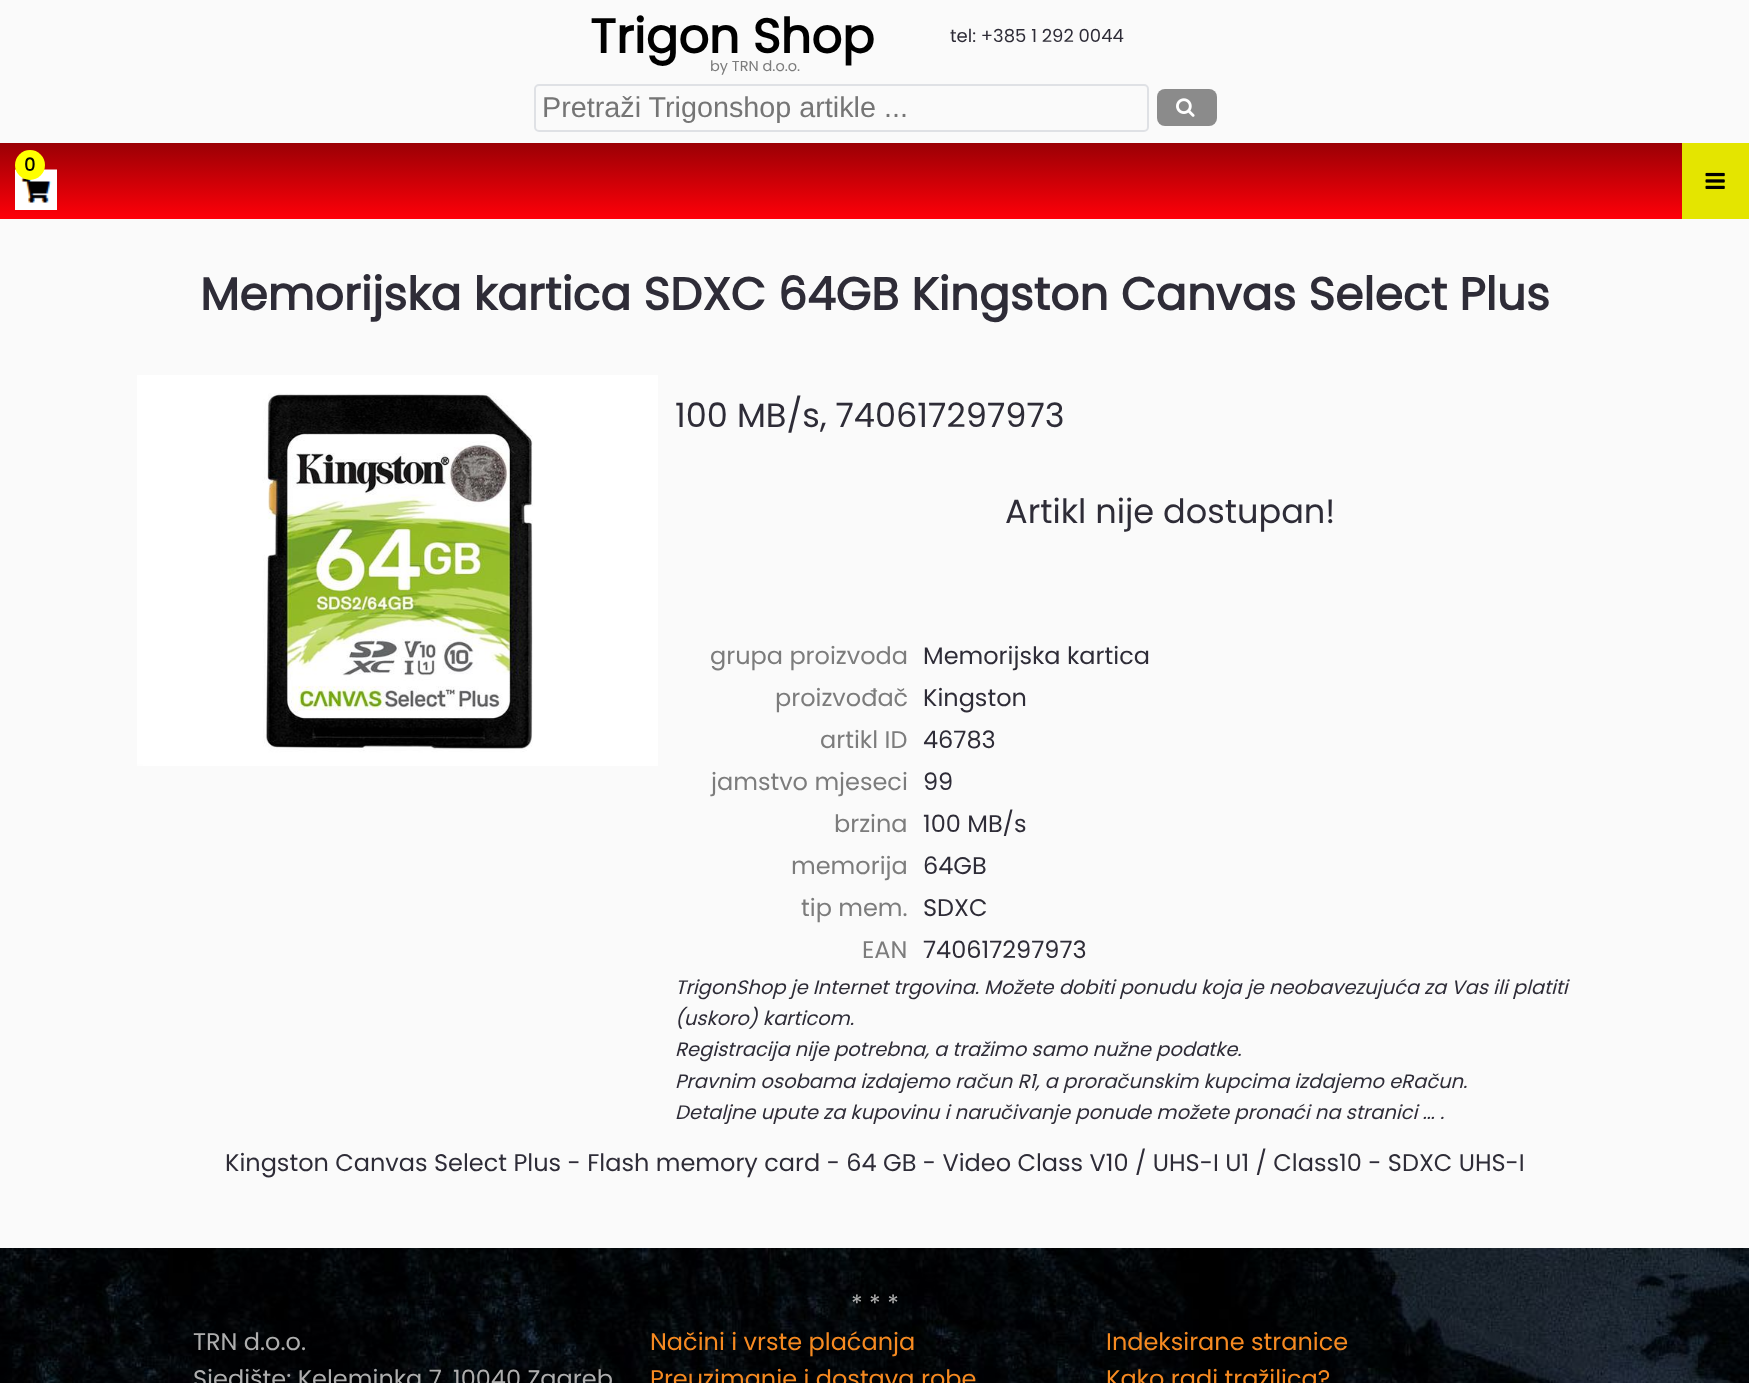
<?xml version="1.0" encoding="UTF-8"?>
<svg xmlns="http://www.w3.org/2000/svg" width="1749" height="1383">
    <defs>
        <linearGradient id="g1" gradientUnits="userSpaceOnUse" x1="875" y1="142" x2="875" y2="219"><stop offset="0" stop-color="#990005"/><stop offset="1" stop-color="#FF0009"/></linearGradient>
    </defs>
    <rect width="100%" height="100%" fill="#FAFAFA"/>
    <text x="590" y="53" font-family="Poppins" font-size="48" font-weight="700" fill="#000000">Trigon Shop</text>
    <text x="710" y="71" font-family="Poppins" font-size="14.5" fill="#7C7C7C">by TRN d.o.o.</text>
    <text x="950" y="42" font-family="Poppins" font-size="18" fill="#2E2C37">tel: +385 1 292 0044</text>
    <rect x="535" y="85" width="613" height="46" rx="4" fill="none" stroke="#DFE1E5" stroke-width="2"/>
    <text x="542" y="117" font-family="Liberation Sans" font-size="28.75" fill="#757575">Pretraži Trigonshop artikle ...</text>
    <rect x="1157" y="89" width="60" height="37" rx="8" fill="#8B8B8B"/>
    <image x="1176" y="98" width="19" height="19" href="img_01.png"/>
    <rect x="0" y="143" width="1682" height="76" fill="url(#g1)"/>
    <image x="15" y="169" width="42" height="41" href="img_02.png"/>
    <circle cx="30" cy="165" r="15" fill="#FFFF00"/>
    <text x="24" y="171" font-family="Poppins" font-size="18" font-weight="700" fill="#000000">0</text>
    <rect x="1682" y="143" width="67" height="76" fill="#E4E500"/>
    <image x="1705" y="172" width="20" height="17" href="img_03.png"/>
    <text x="200" y="310" font-family="Poppins" font-size="45.6" font-weight="700" fill="#2E2C37">Memorijska kartica SDXC 64GB Kingston Canvas Select Plus</text>
    <image x="137" y="375" width="521" height="391" href="img_04.png"/>
    <text x="675" y="427" font-family="Poppins" font-size="33.6" fill="#2E2C37">100 MB/s, 740617297973</text>
    <text x="1005" y="523" font-family="Poppins" font-size="33.6" fill="#2E2C37">Artikl nije dostupan!</text>
    <text x="710" y="664" font-family="Poppins" font-size="24" fill="#7C7C7C">grupa proizvoda</text>
    <text x="923" y="664" font-family="Poppins" font-size="24" fill="#2E2C37">Memorijska kartica</text>
    <text x="775" y="706" font-family="Poppins" font-size="24" fill="#7C7C7C">proizvođač</text>
    <text x="923" y="706" font-family="Poppins" font-size="24" fill="#2E2C37">Kingston</text>
    <text x="820" y="748" font-family="Poppins" font-size="24" fill="#7C7C7C">artikl ID</text>
    <text x="923" y="748" font-family="Poppins" font-size="24" fill="#2E2C37">46783</text>
    <text x="711" y="790" font-family="Poppins" font-size="24" fill="#7C7C7C">jamstvo mjeseci</text>
    <text x="923" y="790" font-family="Poppins" font-size="24" fill="#2E2C37">99</text>
    <text x="834" y="832" font-family="Poppins" font-size="24" fill="#7C7C7C">brzina</text>
    <text x="923" y="832" font-family="Poppins" font-size="24" fill="#2E2C37">100 MB/s</text>
    <text x="791" y="874" font-family="Poppins" font-size="24" fill="#7C7C7C">memorija</text>
    <text x="923" y="874" font-family="Poppins" font-size="24" fill="#2E2C37">64GB</text>
    <text x="801" y="916" font-family="Poppins" font-size="24" fill="#7C7C7C">tip mem.</text>
    <text x="923" y="916" font-family="Poppins" font-size="24" fill="#2E2C37">SDXC</text>
    <text x="862" y="958" font-family="Poppins" font-size="24" fill="#7C7C7C">EAN</text>
    <text x="923" y="958" font-family="Poppins" font-size="24" fill="#2E2C37">740617297973</text>
    <text font-family="Poppins" font-size="19.5" font-style="italic" fill="#2E2C37">
        <tspan x="675" y="994">TrigonShop je Internet trgovina. Možete dobiti ponudu koja je neobavezujuća za Vas ili platiti</tspan>
        <tspan x="675" y="1025">(uskoro) karticom.</tspan>
        <tspan x="675" y="1056">Registracija nije potrebna, a tražimo samo nužne podatke.</tspan>
        <tspan x="675" y="1088">Pravnim osobama izdajemo račun R1, a proračunskim kupcima izdajemo eRačun.</tspan>
        <tspan x="675" y="1119">Detaljne upute za kupovinu i naručivanje ponude možete pronaći na stranici ... .</tspan>
    </text>
    <text x="225" y="1171" font-family="Poppins" font-size="24" fill="#2E2C37">Kingston Canvas Select Plus - Flash memory card - 64 GB - Video Class V10 / UHS-I U1 / Class10 - SDXC UHS-I</text>
    <image x="0" y="1248" width="1749" height="135" href="img_05.png"/>
    <text x="851" y="1312" font-family="Poppins" font-size="24" fill="#AEAEAE">* * *</text>
    <text font-family="Poppins" font-size="24" fill="#AEAEAE">
        <tspan x="193" y="1350">TRN d.o.o.</tspan>
        <tspan x="193" y="1387">Sjedište: Keleminka 7, 10040 Zagreb</tspan>
    </text>
    <text font-family="Poppins" font-size="24" fill="#F68A21">
        <tspan x="650" y="1350">Načini i vrste plaćanja</tspan>
        <tspan x="650" y="1387">Preuzimanje i dostava robe</tspan>
    </text>
    <text font-family="Poppins" font-size="24" fill="#F68A21">
        <tspan x="1106" y="1350">Indeksirane stranice</tspan>
        <tspan x="1106" y="1387">Kako radi tražilica?</tspan>
    </text>
</svg>
